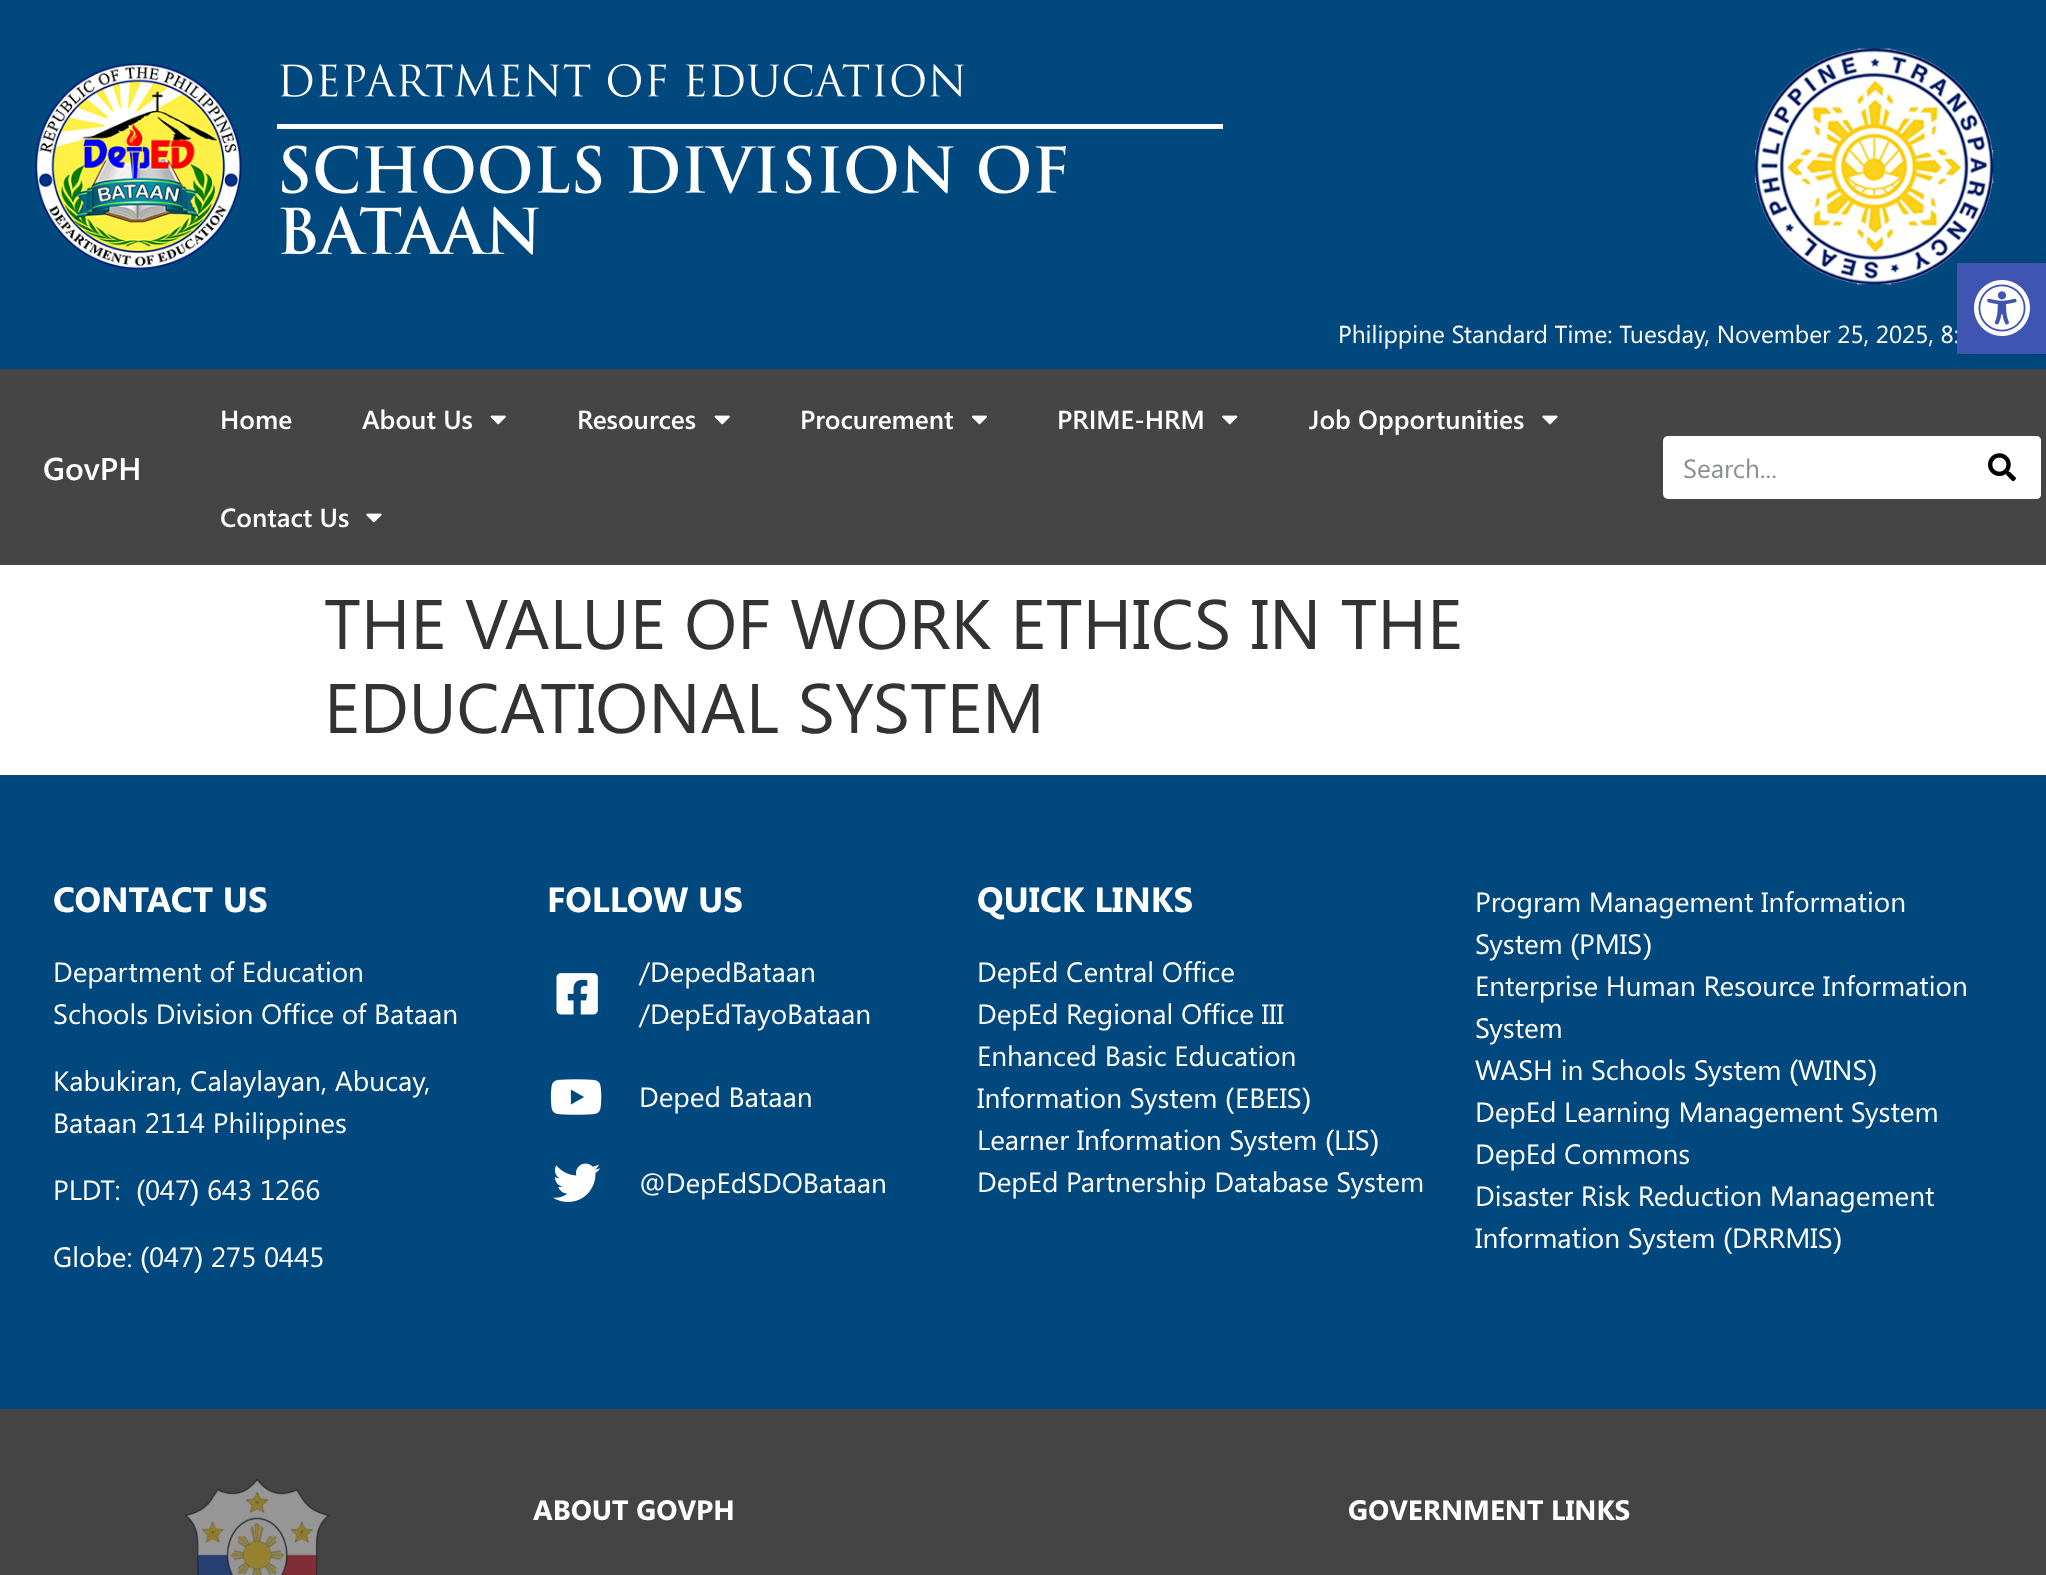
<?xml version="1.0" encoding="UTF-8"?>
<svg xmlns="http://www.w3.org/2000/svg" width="2046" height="1575">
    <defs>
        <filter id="blur1" x="-50%" y="-200%" width="200%" height="500%"><feGaussianBlur stdDeviation="9"/></filter>
    </defs>
    <rect width="100%" height="100%" fill="#FFFFFF"/>
    <rect x="0" y="0" width="2046" height="369" fill="#00487E"/>
    <image x="1755" y="48" width="239" height="237" href="img_06.png"/>
    <rect x="0" y="369" width="2046" height="196" fill="#454545"/>
    <rect x="1957" y="263" width="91" height="91" fill="#000000" fill-opacity="0.1" filter="url(#blur1)"/>
    <text x="1338" y="343" font-family="Segoe UI" font-size="24.5" fill="#FFFFFF">Philippine Standard Time: Tuesday, November 25, 2025, 8:</text>
    <rect x="1957" y="263" width="89" height="91" fill="#4054B2"/>
    <image x="1974" y="280" width="56" height="56" href="img_01.png"/>
    <image x="35" y="63" width="207" height="207" href="img_02.png"/>
    <image x="280" y="64" width="684" height="33" href="img_03.png"/>
    <rect x="277" y="124" width="946" height="5" fill="#FFFFFF"/>
    <image x="282" y="145" width="784" height="49" href="img_04.png"/>
    <image x="280" y="206" width="259" height="49" href="img_05.png"/>
    <text x="43" y="480" font-family="Segoe UI" font-size="31.5" font-weight="600" fill="#FFFFFF">GovPH</text>
    <text x="220" y="429" font-family="Segoe UI" font-size="26.25" font-weight="600" fill="#FFFFFF">Home</text>
    <text x="362" y="429" font-family="Segoe UI" font-size="26.25" font-weight="600" fill="#FFFFFF">About Us</text>
    <image x="490" y="415" width="16" height="10" href="img_07.png"/>
    <text x="577" y="429" font-family="Segoe UI" font-size="26.25" font-weight="600" fill="#FFFFFF">Resources</text>
    <image x="714" y="415" width="16" height="10" href="img_07.png"/>
    <text x="800" y="429" font-family="Segoe UI" font-size="26.25" font-weight="600" fill="#FFFFFF">Procurement</text>
    <image x="971" y="415" width="16" height="10" href="img_08.png"/>
    <text x="1057" y="429" font-family="Segoe UI" font-size="26.25" font-weight="600" fill="#FFFFFF">PRIME-HRM</text>
    <image x="1222" y="415" width="16" height="10" href="img_09.png"/>
    <text x="1309" y="429" font-family="Segoe UI" font-size="26.25" font-weight="600" fill="#FFFFFF">Job Opportunities</text>
    <image x="1542" y="415" width="16" height="10" href="img_10.png"/>
    <text x="220" y="527" font-family="Segoe UI" font-size="26.25" font-weight="600" fill="#FFFFFF">Contact Us</text>
    <image x="366" y="513" width="16" height="10" href="img_10.png"/>
    <rect x="1663" y="436" width="378" height="63" rx="5" fill="#FFFFFF"/>
    <text x="1683" y="478" font-family="Segoe UI" font-size="26.25" fill="#8C8F93">Search...</text>
    <path d="M 1965 436 H 2036 C 2039 436 2041 438 2041 441 V 494 C 2041 497 2039 499 2036 499 H 1965 Z" fill="#FFFFFF"/>
    <image x="1988" y="453" width="28" height="29" href="img_11.png"/>
    <text font-family="Segoe UI" font-size="70" fill="#333333">
        <tspan x="324" y="649">THE VALUE OF WORK ETHICS IN THE</tspan>
        <tspan x="324" y="733">EDUCATIONAL SYSTEM</tspan>
    </text>
    <rect x="0" y="775" width="2046" height="634" fill="#00487E"/>
    <text x="53" y="912" font-family="Segoe UI" font-size="35" font-weight="700" fill="#FFFFFF">CONTACT US</text>
    <text font-family="Segoe UI" font-size="28" fill="#FFFFFF">
        <tspan x="53" y="982">Department of Education</tspan>
        <tspan x="53" y="1024">Schools Division Office of Bataan</tspan>
    </text>
    <text font-family="Segoe UI" font-size="28" fill="#FFFFFF">
        <tspan x="53" y="1091">Kabukiran, Calaylayan, Abucay,</tspan>
        <tspan x="53" y="1133">Bataan 2114 Philippines</tspan>
    </text>
    <text x="53" y="1200" font-family="Segoe UI" font-size="28" fill="#FFFFFF">PLDT:</text>
    <text x="136" y="1200" font-family="Liberation Sans" font-size="28" fill="#FFFFFF">(</text>
    <text x="145" y="1200" font-family="Segoe UI" font-size="28" fill="#FFFFFF">047</text>
    <text x="190" y="1200" font-family="Liberation Sans" font-size="28" fill="#FFFFFF">)</text>
    <text x="207" y="1200" font-family="Segoe UI" font-size="28" fill="#FFFFFF">643 1266</text>
    <text x="53" y="1267" font-family="Segoe UI" font-size="28" fill="#FFFFFF">Globe:</text>
    <text x="140" y="1267" font-family="Liberation Sans" font-size="28" fill="#FFFFFF">(</text>
    <text x="149" y="1267" font-family="Segoe UI" font-size="28" fill="#FFFFFF">047</text>
    <text x="194" y="1267" font-family="Liberation Sans" font-size="28" fill="#FFFFFF">)</text>
    <text x="211" y="1267" font-family="Segoe UI" font-size="28" fill="#FFFFFF">275 0445</text>
    <text x="547" y="912" font-family="Segoe UI" font-size="35" font-weight="700" fill="#FFFFFF">FOLLOW US</text>
    <image x="556" y="973" width="42" height="42" href="img_12.png"/>
    <text font-family="Segoe UI" font-size="28" fill="#FFFFFF">
        <tspan x="639" y="982">/DepedBataan</tspan>
        <tspan x="639" y="1024">/DepEdTayoBataan</tspan>
    </text>
    <image x="550" y="1079" width="52" height="36" href="img_13.png"/>
    <text x="639" y="1107" font-family="Segoe UI" font-size="28" fill="#FFFFFF">Deped Bataan</text>
    <image x="553" y="1163" width="48" height="39" href="img_14.png"/>
    <text x="639" y="1193" font-family="Segoe UI" font-size="28" fill="#FFFFFF">@DepEdSDOBataan</text>
    <text x="977" y="912" font-family="Segoe UI" font-size="35" font-weight="700" fill="#FFFFFF">QUICK LINKS</text>
    <text font-family="Segoe UI" font-size="28" fill="#FFFFFF">
        <tspan x="977" y="982">DepEd Central Office</tspan>
        <tspan x="977" y="1024">DepEd Regional Office III</tspan>
        <tspan x="977" y="1066">Enhanced Basic Education</tspan>
        <tspan x="977" y="1108">Information System</tspan>
    </text>
    <text x="1225" y="1108" font-family="Liberation Sans" font-size="28" fill="#FFFFFF">(</text>
    <text x="1235" y="1108" font-family="Segoe UI" font-size="28" fill="#FFFFFF">EBEIS</text>
    <text x="1302" y="1108" font-family="Liberation Sans" font-size="28" fill="#FFFFFF">)</text>
    <text x="977" y="1150" font-family="Segoe UI" font-size="28" fill="#FFFFFF">Learner Information System</text>
    <text x="1325" y="1150" font-family="Liberation Sans" font-size="28" fill="#FFFFFF">(</text>
    <text x="1334" y="1150" font-family="Segoe UI" font-size="28" fill="#FFFFFF">LIS</text>
    <text x="1370" y="1150" font-family="Liberation Sans" font-size="28" fill="#FFFFFF">)</text>
    <text x="977" y="1192" font-family="Segoe UI" font-size="28" fill="#FFFFFF">DepEd Partnership Database System</text>
    <text font-family="Segoe UI" font-size="28" fill="#FFFFFF">
        <tspan x="1475" y="912">Program Management Information</tspan>
        <tspan x="1475" y="954">System</tspan>
    </text>
    <text x="1570" y="954" font-family="Liberation Sans" font-size="28" fill="#FFFFFF">(</text>
    <text x="1579" y="954" font-family="Segoe UI" font-size="28" fill="#FFFFFF">PMIS</text>
    <text x="1643" y="954" font-family="Liberation Sans" font-size="28" fill="#FFFFFF">)</text>
    <text font-family="Segoe UI" font-size="28" fill="#FFFFFF">
        <tspan x="1475" y="996">Enterprise Human Resource Information</tspan>
        <tspan x="1475" y="1038">System</tspan>
        <tspan x="1475" y="1080">WASH in Schools System</tspan>
    </text>
    <text x="1789" y="1080" font-family="Liberation Sans" font-size="28" fill="#FFFFFF">(</text>
    <text x="1798" y="1080" font-family="Segoe UI" font-size="28" fill="#FFFFFF">WINS</text>
    <text x="1868" y="1080" font-family="Liberation Sans" font-size="28" fill="#FFFFFF">)</text>
    <text font-family="Segoe UI" font-size="28" fill="#FFFFFF">
        <tspan x="1475" y="1122">DepEd Learning Management System</tspan>
        <tspan x="1475" y="1164">DepEd Commons</tspan>
        <tspan x="1475" y="1206">Disaster Risk Reduction Management</tspan>
        <tspan x="1475" y="1248">Information System</tspan>
    </text>
    <text x="1723" y="1248" font-family="Liberation Sans" font-size="28" fill="#FFFFFF">(</text>
    <text x="1732" y="1248" font-family="Segoe UI" font-size="28" fill="#FFFFFF">DRRMIS</text>
    <text x="1833" y="1248" font-family="Liberation Sans" font-size="28" fill="#FFFFFF">)</text>
    <rect x="0" y="1409" width="2046" height="166" fill="#444444"/>
    <image x="185" y="1478" width="145" height="97" href="img_15.png"/>
    <text x="533" y="1520" font-family="Segoe UI" font-size="28" font-weight="700" fill="#FFFFFF">ABOUT GOVPH</text>
    <text x="1348" y="1520" font-family="Segoe UI" font-size="28" font-weight="700" fill="#FFFFFF">GOVERNMENT LINKS</text>
</svg>
